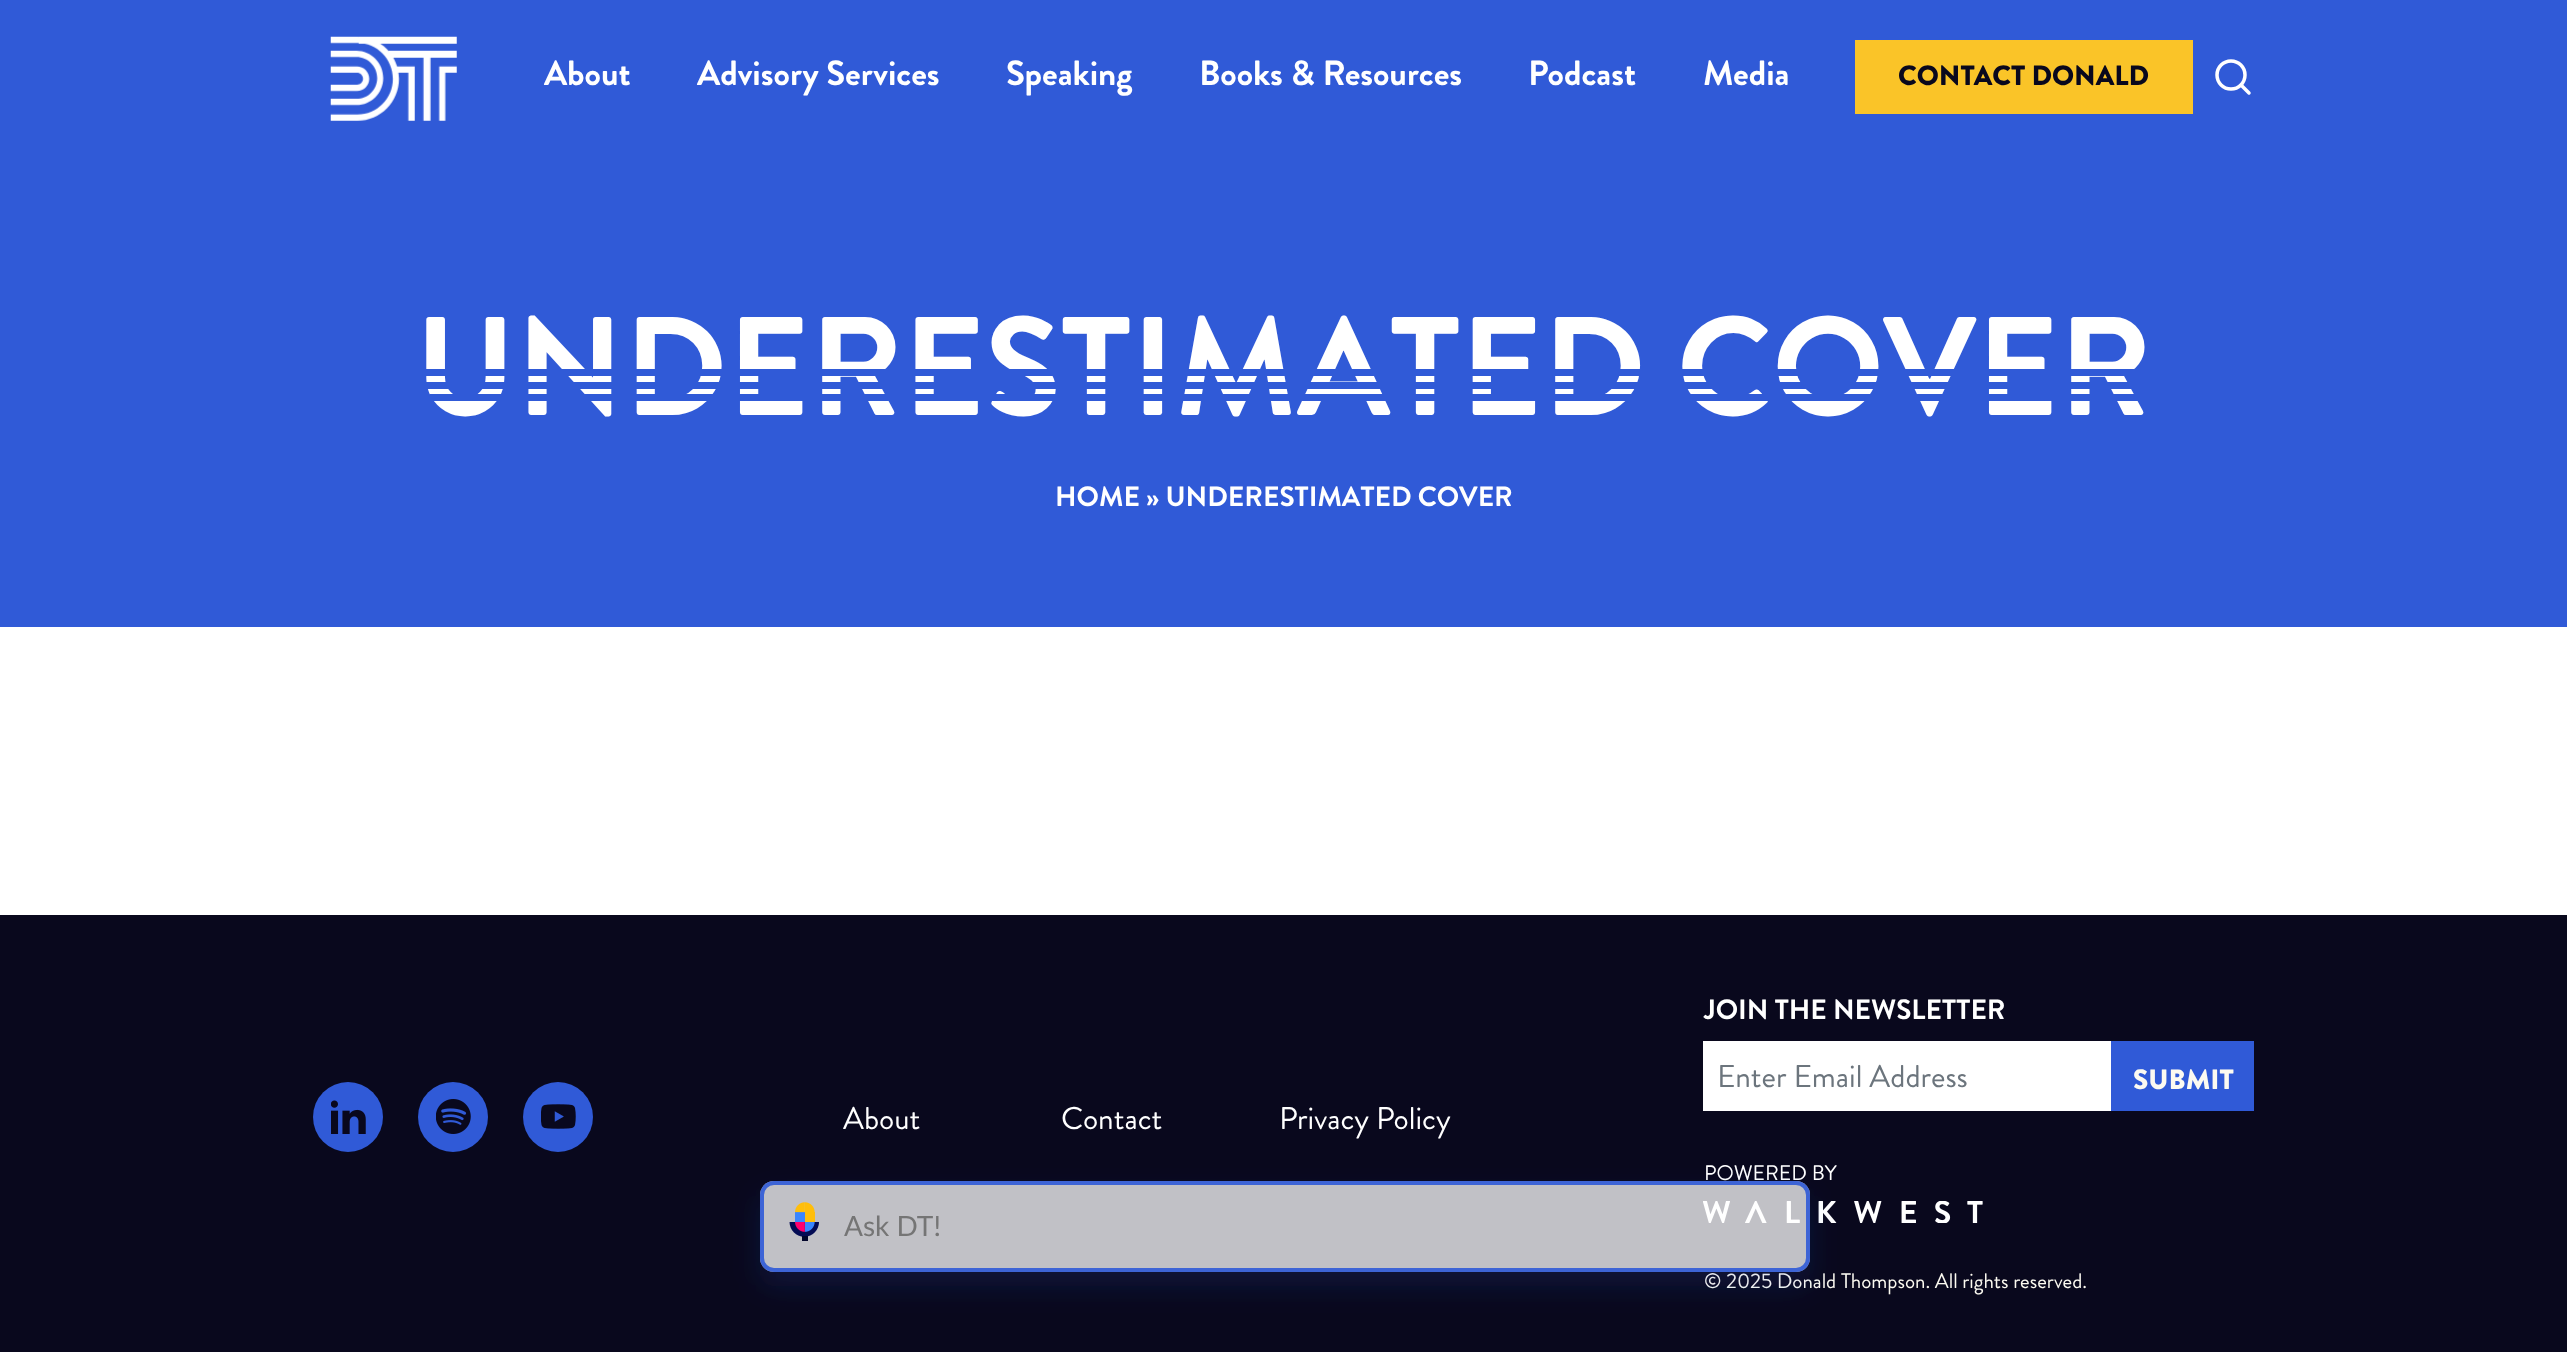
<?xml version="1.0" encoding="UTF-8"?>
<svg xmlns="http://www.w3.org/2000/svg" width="2567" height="1352">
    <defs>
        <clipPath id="clip1"><path d="M 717 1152 H 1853 V 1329 H 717 Z M 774 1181 H 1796 C 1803.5 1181 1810 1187.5 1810 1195 V 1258 C 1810 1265.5 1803.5 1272 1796 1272 H 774 C 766.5 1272 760 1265.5 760 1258 V 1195 C 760 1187.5 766.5 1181 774 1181 Z" clip-rule="evenodd"/></clipPath>
        <filter id="blur1" x="-50%" y="-200%" width="200%" height="500%"><feGaussianBlur stdDeviation="14"/></filter>
    </defs>
    <rect width="100%" height="100%" fill="#FFFFFF"/>
    <rect x="0" y="0" width="2567" height="627" fill="#305AD7"/>
    <image x="330" y="36" width="127" height="85" href="img_01.png"/>
    <text x="544" y="85" font-family="Brandon Grotesque" font-size="35" font-weight="700" fill="#FFFFFF">About</text>
    <text x="697" y="85" font-family="Brandon Grotesque" font-size="35" font-weight="700" fill="#FFFFFF">Advisory Services</text>
    <text x="1006" y="85" font-family="Brandon Grotesque" font-size="35" font-weight="700" fill="#FFFFFF">Speaking</text>
    <text x="1199" y="85" font-family="Brandon Grotesque" font-size="35" font-weight="700" fill="#FFFFFF">Books &amp; Resources</text>
    <text x="1528" y="85" font-family="Brandon Grotesque" font-size="35" font-weight="700" fill="#FFFFFF">Podcast</text>
    <text x="1703" y="85" font-family="Brandon Grotesque" font-size="35" font-weight="700" fill="#FFFFFF">Media</text>
    <rect x="1855" y="40" width="338" height="74" fill="#FAC428"/>
    <text x="1898" y="85" font-family="Brandon Grotesque" font-size="28" font-weight="900" fill="#09081D">CONTACT DONALD</text>
    <circle cx="2231" cy="75" r="14" fill="none" stroke="#FFFFFF" stroke-width="3.5"/>
    <path d="M 2249 93 L 2241 85" fill="none" stroke="#FFFFFF" stroke-width="3.5" stroke-linecap="round" stroke-linejoin="round"/>
    <text x="415" y="415" font-family="Brandon Grotesque" font-size="140" font-weight="700" fill="#FFFFFF">UNDERESTIMATED COVER</text>
    <rect x="426" y="382" width="1706" height="7" fill="#305AD7"/>
    <rect x="426" y="369" width="1709" height="7" fill="#305AD7"/>
    <rect x="430" y="394" width="1708" height="7" fill="#305AD7"/>
    <text x="1055" y="506" font-family="Brandon Grotesque" font-size="28" font-weight="700" fill="#FFFFFF">HOME » UNDERESTIMATED COVER</text>
    <rect x="0" y="915" width="2567" height="437" fill="#09081D"/>
    <circle cx="348" cy="1117" r="35" fill="#305AD7"/>
    <image x="331" y="1100" width="35" height="34" href="img_02.png"/>
    <circle cx="453" cy="1117" r="35" fill="#305AD7"/>
    <image x="436" y="1099" width="35" height="35" href="img_03.png"/>
    <circle cx="558" cy="1117" r="35" fill="#305AD7"/>
    <image x="541" y="1104" width="35" height="25" href="img_04.png"/>
    <text x="843" y="1129" font-family="Brandon Grotesque" font-size="31.5" fill="#FFFFFF">About</text>
    <text x="1061" y="1129" font-family="Brandon Grotesque" font-size="31.5" fill="#FFFFFF">Contact</text>
    <text x="1279" y="1129" font-family="Brandon Grotesque" font-size="31.5" fill="#FFFFFF">Privacy Policy</text>
    <text x="1704" y="1019" font-family="Brandon Grotesque" font-size="28" font-weight="700" fill="#FFFFFF">JOIN THE NEWSLETTER</text>
    <rect x="1703" y="1041" width="408" height="70" fill="#FFFFFF"/>
    <text x="1717" y="1087" font-family="Brandon Grotesque" font-size="31.5" fill="#6C757D">Enter Email Address</text>
    <rect x="2111" y="1041" width="143" height="70" fill="#305AD7"/>
    <text x="2133" y="1089" font-family="Brandon Grotesque" font-size="28" font-weight="900" fill="#FCFAF1">SUBMIT</text>
    <text x="1704" y="1180" font-family="Brandon Grotesque" font-size="21" fill="#FFFFFF">POWERED BY</text>
    <image x="1703" y="1201" width="280" height="22" href="img_05.png"/>
    <text x="1704" y="1288" font-family="Brandon Grotesque" font-size="21" fill="#FCFAF1">© 2025 Donald Thompson. All rights reserved.</text>
    <g clip-path="url(#clip1)">
        <rect x="760" y="1195" width="1050" height="91" rx="14" fill="#2F5AD7" fill-opacity="0.15" filter="url(#blur1)"/>
    </g>
    <rect x="760" y="1181" width="1050" height="91" rx="14" fill="#FFFFFF" fill-opacity="0.75"/>
    <rect x="762" y="1183" width="1046" height="87" rx="12" fill="none" stroke="#2F5AD7" stroke-opacity="0.9" stroke-width="4"/>
    <image x="789" y="1202" width="30" height="39" href="img_06.png"/>
    <text x="844" y="1236" font-family="Lato" font-size="28" fill="#757575">Ask DT!</text>
</svg>
